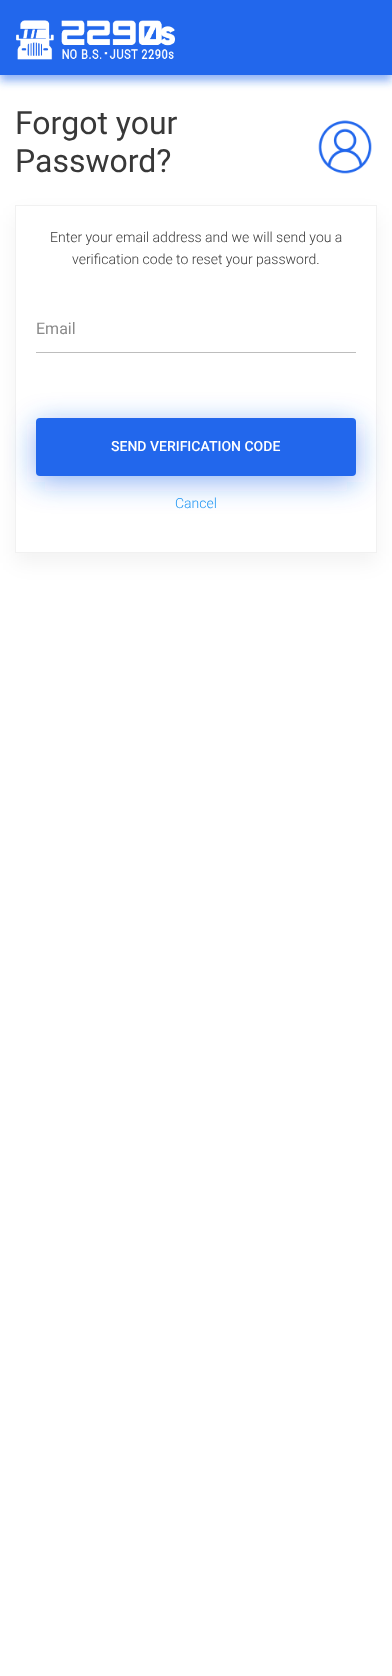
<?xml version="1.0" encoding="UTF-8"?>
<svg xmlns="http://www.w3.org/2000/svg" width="392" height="1676">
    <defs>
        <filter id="blur1" x="-50%" y="-200%" width="200%" height="500%"><feGaussianBlur stdDeviation="4.5"/></filter>
        <clipPath id="clip1"><path d="M 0 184 H 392 V 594 H 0 Z M 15 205 H 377 V 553 H 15 Z" clip-rule="evenodd"/></clipPath>
        <filter id="blur2" x="-50%" y="-200%" width="200%" height="500%"><feGaussianBlur stdDeviation="10"/></filter>
        <filter id="blur3" x="-50%" y="-200%" width="200%" height="500%"><feGaussianBlur stdDeviation="14"/></filter>
    </defs>
    <rect width="100%" height="100%" fill="#FFFFFF"/>
    <rect x="0" y="6" width="392" height="75" fill="#2267EC" fill-opacity="0.5" filter="url(#blur1)"/>
    <rect x="0" y="0" width="392" height="75" fill="#2267EC"/>
    <image x="16" y="20" width="159" height="40" href="img_01.png"/>
    <text font-family="Roboto" font-size="32" fill="#383838">
        <tspan x="15" y="134">Forgot your</tspan>
        <tspan x="15" y="172">Password?</tspan>
    </text>
    <image x="318" y="120" width="54" height="54" href="img_02.png"/>
    <g clip-path="url(#clip1)">
        <rect x="15" y="215" width="362" height="348" fill="#000000" fill-opacity="0.05" filter="url(#blur2)"/>
    </g>
    <rect x="15.5" y="205.5" width="361" height="347" fill="none" stroke="#F1F1F1"/>
    <text x="50" y="242" font-family="Roboto" font-size="14" font-weight="300" fill="#383838">Enter your email address and we will send you a</text>
    <text x="72" y="264" font-family="Roboto" font-size="14" font-weight="300" fill="#383838">verification code to reset your password.</text>
    <text x="36" y="334" font-family="Roboto" font-size="16" fill="#8A8A8A">Email</text>
    <rect x="36" y="352" width="320" height="1" fill="#BDBDBD"/>
    <rect x="36" y="424" width="320" height="58" rx="4" fill="#2267EC" fill-opacity="0.5" filter="url(#blur3)"/>
    <rect x="36" y="418" width="320" height="58" rx="4" fill="#2267EC"/>
    <text x="111" y="451" font-family="Roboto" font-size="14" font-weight="500" fill="#FFFFFF">SEND VERIFICATION CODE</text>
    <text x="175" y="508" font-family="Roboto" font-size="14" font-weight="300" fill="#2196F3">Cancel</text>
</svg>
